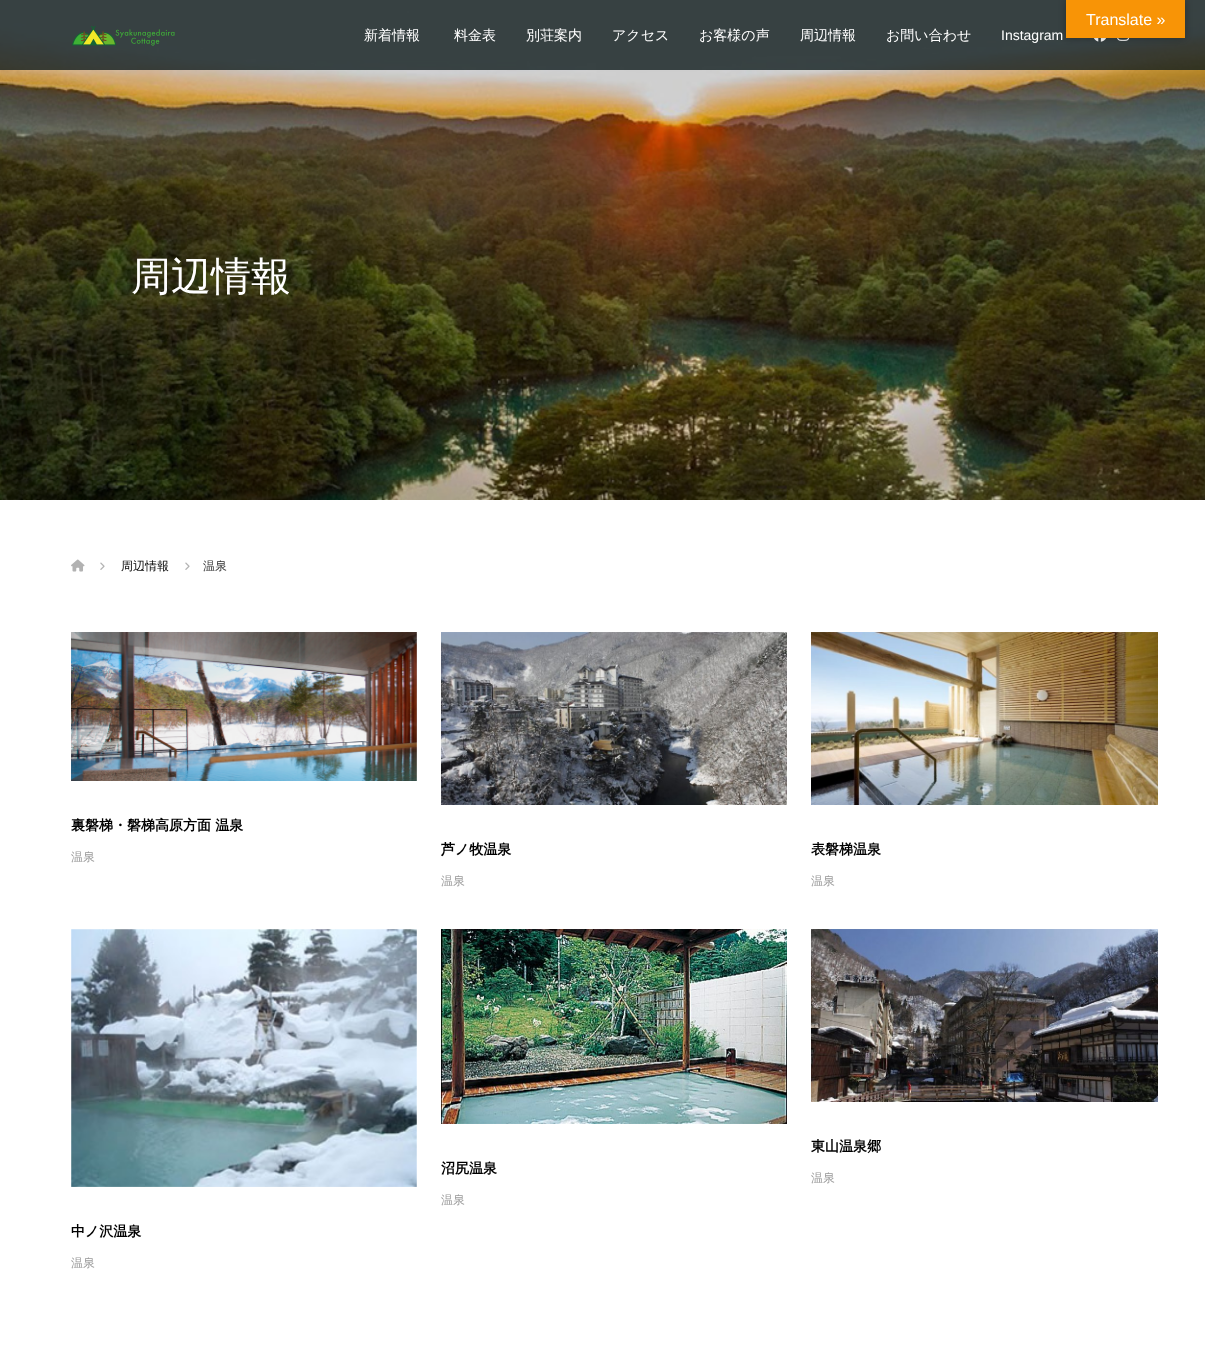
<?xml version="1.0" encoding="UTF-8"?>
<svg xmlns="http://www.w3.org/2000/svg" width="1205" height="1371">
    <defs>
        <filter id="blur1" x="-50%" y="-200%" width="200%" height="500%"><feGaussianBlur stdDeviation="4.5"/></filter>
    </defs>
    <rect width="100%" height="100%" fill="#FFFFFF"/>
    <image x="0" y="0" width="1205" height="500" href="img_01.png"/>
    <rect x="0" y="0" width="1205" height="70" fill="#121E1F" fill-opacity="0.8"/>
    <image x="1093" y="38" width="14" height="4" href="img_03.png"/>
    <image x="1117" y="38" width="13" height="3" href="img_04.png"/>
    <rect x="1066" y="0" width="119" height="38" fill="#000000" fill-opacity="0.3" filter="url(#blur1)"/>
    <rect x="1066" y="0" width="119" height="38" fill="#F89406"/>
    <text x="1086" y="25" font-family="Liberation Sans" font-size="16" fill="#FFFFFF">Translate »</text>
    <image x="72" y="26" width="103" height="20" href="img_02.png"/>
    <text x="364" y="40" font-family="WenQuanYi Zen Hei" font-size="14" font-weight="500" fill="#FFFFFF">新着情報</text>
    <text x="454" y="40" font-family="WenQuanYi Zen Hei" font-size="14" font-weight="500" fill="#FFFFFF">料金表</text>
    <text x="526" y="40" font-family="WenQuanYi Zen Hei" font-size="14" font-weight="500" fill="#FFFFFF">別荘案内</text>
    <text x="612" y="40" font-family="WenQuanYi Zen Hei" font-size="14" font-weight="500" fill="#FFFFFF">アクセス</text>
    <text x="699" y="40" font-family="WenQuanYi Zen Hei" font-size="14" font-weight="500" fill="#FFFFFF">お客様の声</text>
    <text x="800" y="40" font-family="WenQuanYi Zen Hei" font-size="14" font-weight="500" fill="#FFFFFF">周辺情報</text>
    <text x="886" y="40" font-family="WenQuanYi Zen Hei" font-size="14" font-weight="500" fill="#FFFFFF">お問い合わせ</text>
    <text x="1001" y="40" font-family="Liberation Sans" font-size="14" fill="#FFFFFF">Instagram</text>
    <text x="131" y="290" font-family="WenQuanYi Zen Hei" font-size="40" font-weight="500" fill="#FFFFFF">周辺情報</text>
    <image x="71" y="559" width="14" height="13" href="img_05.png"/>
    <image x="100" y="562" width="5" height="8" href="img_06.png"/>
    <text x="121" y="570" font-family="WenQuanYi Zen Hei" font-size="12" font-weight="500" fill="#000000">周辺情報</text>
    <image x="185" y="562" width="5" height="8" href="img_06.png"/>
    <text x="203" y="570" font-family="WenQuanYi Zen Hei" font-size="12" font-weight="500" fill="#333333">温泉</text>
    <image x="71" y="632" width="346" height="149" href="img_07.png"/>
    <text x="71" y="830" font-family="WenQuanYi Zen Hei" font-size="14" font-weight="700" fill="#000000">裏磐梯・磐梯高原方面 温泉</text>
    <text x="71" y="861" font-family="WenQuanYi Zen Hei" font-size="12" font-weight="500" fill="#999999">温泉</text>
    <image x="441" y="632" width="346" height="173" href="img_08.png"/>
    <text x="441" y="854" font-family="WenQuanYi Zen Hei" font-size="14" font-weight="700" fill="#000000">芦ノ牧温泉</text>
    <text x="441" y="885" font-family="WenQuanYi Zen Hei" font-size="12" font-weight="500" fill="#999999">温泉</text>
    <image x="811" y="632" width="347" height="173" href="img_09.png"/>
    <text x="811" y="854" font-family="WenQuanYi Zen Hei" font-size="14" font-weight="700" fill="#000000">表磐梯温泉</text>
    <text x="811" y="885" font-family="WenQuanYi Zen Hei" font-size="12" font-weight="500" fill="#999999">温泉</text>
    <image x="441" y="929" width="346" height="195" href="img_10.png"/>
    <text x="441" y="1173" font-family="WenQuanYi Zen Hei" font-size="14" font-weight="700" fill="#000000">沼尻温泉</text>
    <text x="441" y="1204" font-family="WenQuanYi Zen Hei" font-size="12" font-weight="500" fill="#999999">温泉</text>
    <image x="811" y="929" width="347" height="173" href="img_11.png"/>
    <text x="811" y="1151" font-family="WenQuanYi Zen Hei" font-size="14" font-weight="700" fill="#000000">東山温泉郷</text>
    <text x="811" y="1182" font-family="WenQuanYi Zen Hei" font-size="12" font-weight="500" fill="#999999">温泉</text>
    <image x="71" y="929" width="346" height="258" href="img_12.png"/>
    <text x="71" y="1236" font-family="WenQuanYi Zen Hei" font-size="14" font-weight="700" fill="#000000">中ノ沢温泉</text>
    <text x="71" y="1267" font-family="WenQuanYi Zen Hei" font-size="12" font-weight="500" fill="#999999">温泉</text>
</svg>
